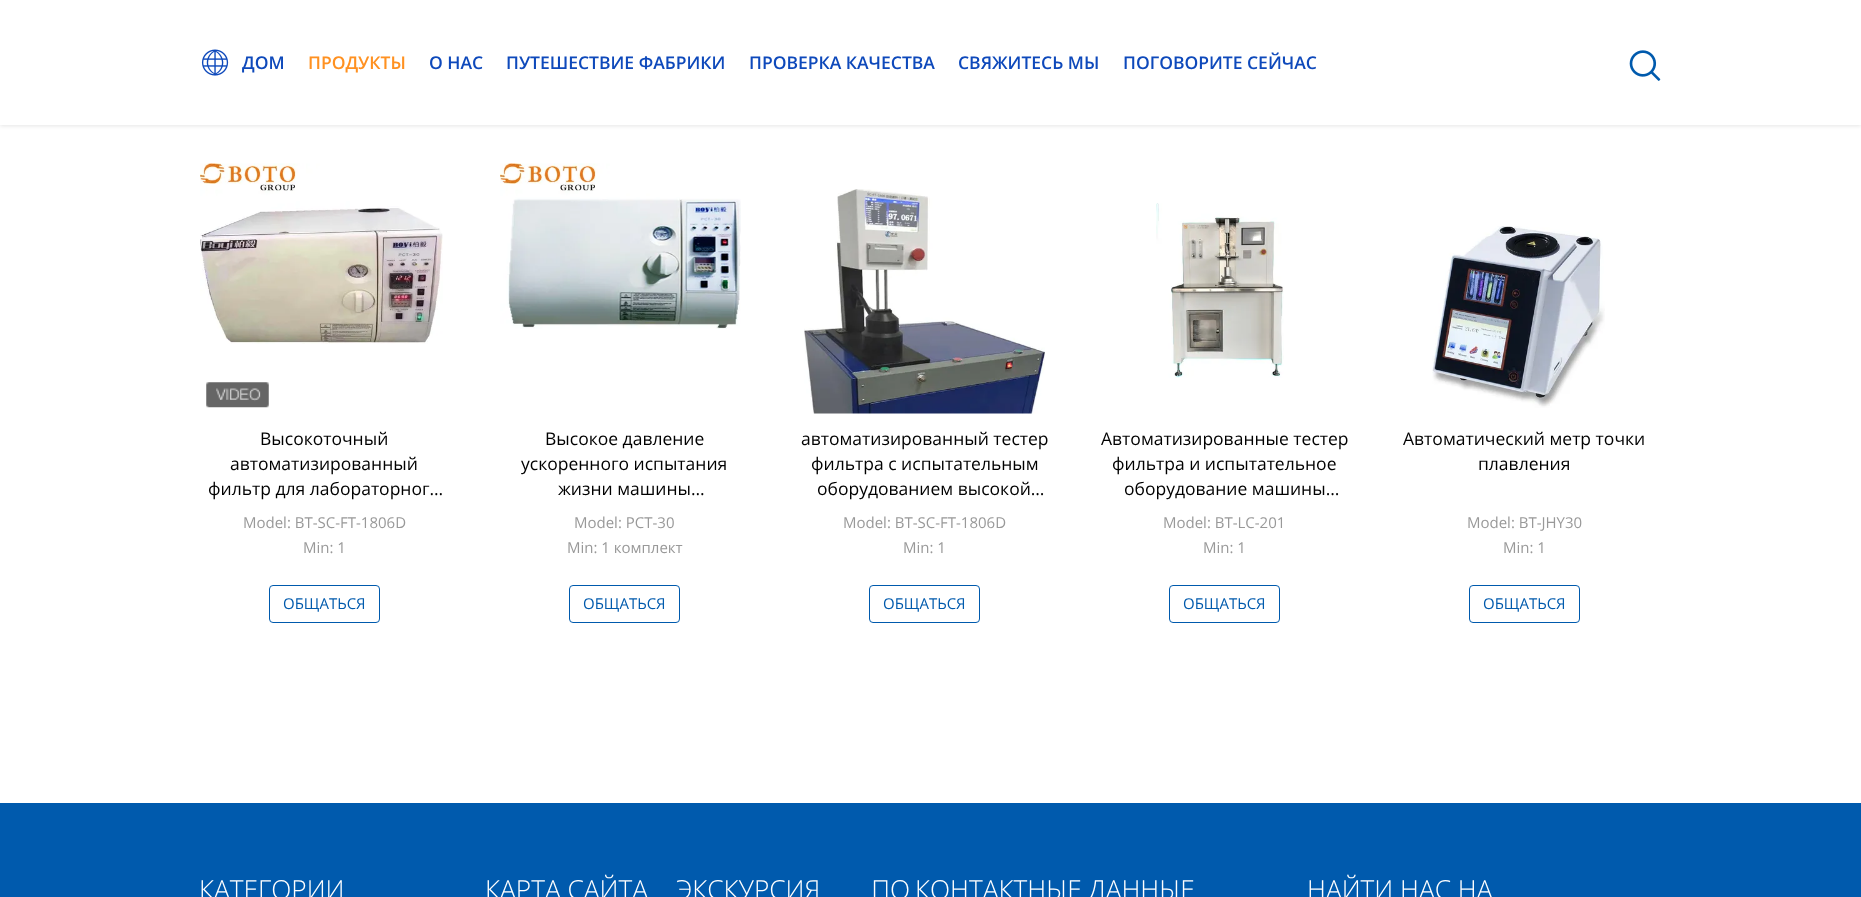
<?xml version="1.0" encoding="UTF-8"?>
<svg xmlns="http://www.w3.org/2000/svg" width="1861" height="897">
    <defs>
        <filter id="blur1" x="-50%" y="-200%" width="200%" height="500%"><feGaussianBlur stdDeviation="2"/></filter>
    </defs>
    <rect width="100%" height="100%" fill="#FFFFFF"/>
    <rect x="0" y="1" width="1861" height="125" fill="#000000" fill-opacity="0.1" filter="url(#blur1)"/>
    <rect x="0" y="0" width="1861" height="125" fill="#FFFFFF"/>
    <image x="201" y="49" width="28" height="27" href="img_01.png"/>
    <text x="242" y="69" font-family="Open Sans" font-size="17.5" font-weight="600" fill="#0E49BB">ДОМ</text>
    <text x="308" y="69" font-family="Open Sans" font-size="17.5" font-weight="600" fill="#FF9121">ПРОДУКТЫ</text>
    <text x="429" y="69" font-family="Open Sans" font-size="17.5" font-weight="600" fill="#0E49BB">О НАС</text>
    <text x="506" y="69" font-family="Open Sans" font-size="17.5" font-weight="600" fill="#0E49BB">ПУТЕШЕСТВИЕ ФАБРИКИ</text>
    <text x="749" y="69" font-family="Open Sans" font-size="17.5" font-weight="600" fill="#0E49BB">ПРОВЕРКА КАЧЕСТВА</text>
    <text x="958" y="69" font-family="Open Sans" font-size="17.5" font-weight="600" fill="#0E49BB">СВЯЖИТЕСЬ МЫ</text>
    <text x="1123" y="69" font-family="Open Sans" font-size="17.5" font-weight="600" fill="#0E49BB">ПОГОВОРИТЕ СЕЙЧАС</text>
    <image x="1629" y="50" width="32" height="31" href="img_02.png"/>
    <image x="200" y="163" width="243" height="181" href="img_03.png"/>
    <image x="206" y="382" width="63" height="26" href="img_04.png"/>
    <text x="260" y="445" font-family="Open Sans" font-size="17.5" fill="#000000">Высокоточный</text>
    <text x="230" y="470" font-family="Open Sans" font-size="17.5" fill="#000000">автоматизированный</text>
    <text x="208" y="495" font-family="Open Sans" font-size="17.5" fill="#000000">фильтр для лабораторног…</text>
    <text x="243" y="528" font-family="Open Sans" font-size="15" fill="#999999">Model: BT-SC-FT-1806D</text>
    <text x="303" y="553" font-family="Open Sans" font-size="15" fill="#999999">Min: 1</text>
    <rect x="269.5" y="585.5" width="110" height="37" rx="3.5" fill="none" stroke="#005AAD"/>
    <text x="283" y="609" font-family="Open Sans" font-size="15" fill="#005AAD">ОБЩАТЬСЯ</text>
    <image x="500" y="163" width="241" height="166" href="img_05.png"/>
    <text x="545" y="445" font-family="Open Sans" font-size="17.5" fill="#000000">Высокое давление</text>
    <text x="521" y="470" font-family="Open Sans" font-size="17.5" fill="#000000">ускоренного испытания</text>
    <text x="558" y="495" font-family="Open Sans" font-size="17.5" fill="#000000">жизни машины…</text>
    <text x="574" y="528" font-family="Open Sans" font-size="15" fill="#999999">Model: PCT-30</text>
    <text x="567" y="553" font-family="Open Sans" font-size="15" fill="#999999">Min: 1 комплект</text>
    <rect x="569.5" y="585.5" width="110" height="37" rx="3.5" fill="none" stroke="#005AAD"/>
    <text x="583" y="609" font-family="Open Sans" font-size="15" fill="#005AAD">ОБЩАТЬСЯ</text>
    <image x="804" y="189" width="241" height="225" href="img_06.png"/>
    <text x="801" y="445" font-family="Open Sans" font-size="17.5" fill="#000000">автоматизированный тестер</text>
    <text x="811" y="470" font-family="Open Sans" font-size="17.5" fill="#000000">фильтра с испытательным</text>
    <text x="817" y="495" font-family="Open Sans" font-size="17.5" fill="#000000">оборудованием высокой…</text>
    <text x="843" y="528" font-family="Open Sans" font-size="15" fill="#999999">Model: BT-SC-FT-1806D</text>
    <text x="903" y="553" font-family="Open Sans" font-size="15" fill="#999999">Min: 1</text>
    <rect x="869.5" y="585.5" width="110" height="37" rx="3.5" fill="none" stroke="#005AAD"/>
    <text x="883" y="609" font-family="Open Sans" font-size="15" fill="#005AAD">ОБЩАТЬСЯ</text>
    <image x="1156" y="203" width="128" height="175" href="img_07.png"/>
    <text x="1101" y="445" font-family="Open Sans" font-size="17.5" fill="#000000">Автоматизированные тестер</text>
    <text x="1112" y="470" font-family="Open Sans" font-size="17.5" fill="#000000">фильтра и испытательное</text>
    <text x="1124" y="495" font-family="Open Sans" font-size="17.5" fill="#000000">оборудование машины…</text>
    <text x="1163" y="528" font-family="Open Sans" font-size="15" fill="#999999">Model: BT-LC-201</text>
    <text x="1203" y="553" font-family="Open Sans" font-size="15" fill="#999999">Min: 1</text>
    <rect x="1169.5" y="585.5" width="110" height="37" rx="3.5" fill="none" stroke="#005AAD"/>
    <text x="1183" y="609" font-family="Open Sans" font-size="15" fill="#005AAD">ОБЩАТЬСЯ</text>
    <image x="1432" y="226" width="173" height="182" href="img_08.png"/>
    <text x="1403" y="445" font-family="Open Sans" font-size="17.5" fill="#000000">Автоматический метр точки</text>
    <text x="1478" y="470" font-family="Open Sans" font-size="17.5" fill="#000000">плавления</text>
    <text x="1467" y="528" font-family="Open Sans" font-size="15" fill="#999999">Model: BT-JHY30</text>
    <text x="1503" y="553" font-family="Open Sans" font-size="15" fill="#999999">Min: 1</text>
    <rect x="1469.5" y="585.5" width="110" height="37" rx="3.5" fill="none" stroke="#005AAD"/>
    <text x="1483" y="609" font-family="Open Sans" font-size="15" fill="#005AAD">ОБЩАТЬСЯ</text>
    <rect x="0" y="803" width="1861" height="94" fill="#005AAD"/>
    <text x="199" y="899" font-family="Open Sans" font-size="26.25" font-weight="300" fill="#FFFFFF">КАТЕГОРИИ</text>
    <text x="485" y="899" font-family="Open Sans" font-size="26.25" font-weight="300" fill="#FFFFFF">КАРТА САЙТА</text>
    <text x="676" y="899" word-spacing="44" font-family="Open Sans" font-size="26.25" font-weight="300" fill="#FFFFFF">ЭКСКУРСИЯ ПО</text>
    <text x="915" y="899" font-family="Open Sans" font-size="26.25" font-weight="300" fill="#FFFFFF">КОНТАКТНЫЕ ДАННЫЕ</text>
    <text x="1307" y="899" font-family="Open Sans" font-size="26.25" font-weight="300" fill="#FFFFFF">НАЙТИ НАС НА</text>
</svg>
